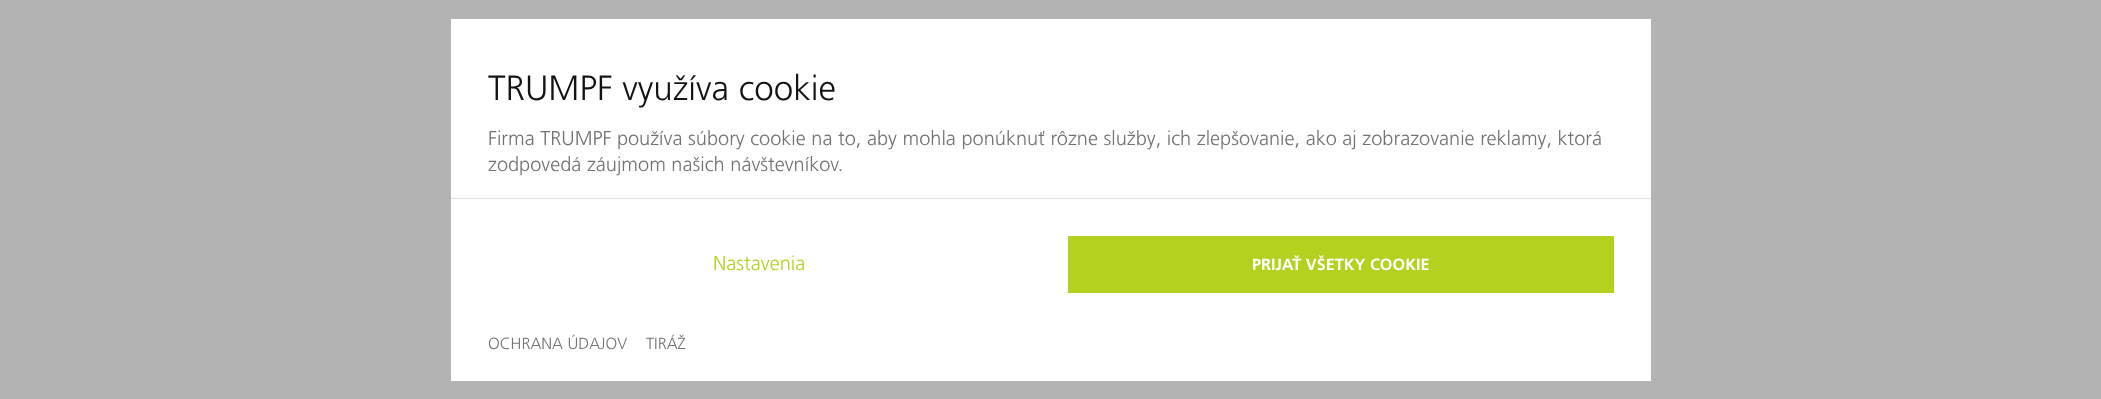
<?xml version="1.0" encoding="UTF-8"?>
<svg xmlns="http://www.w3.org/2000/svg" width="2101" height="399">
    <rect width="100%" height="100%" fill="#B3B3B3"/>
    <rect x="451" y="19" width="1200" height="362" fill="#FFFFFF"/>
    <text x="488" y="100" font-family="Frutiger" font-size="35" font-weight="300" fill="#131313">TRUMPF využíva cookie</text>
    <text font-family="Frutiger" font-size="20" font-weight="300" fill="#727272">
        <tspan x="488" y="145">Firma TRUMPF používa súbory cookie na to, aby mohla ponúknuť rôzne služby, ich zlepšovanie, ako aj zobrazovanie reklamy, ktorá</tspan>
        <tspan x="488" y="171">zodpovedá záujmom našich návštevníkov.</tspan>
    </text>
    <rect x="451" y="198" width="1200" height="1" fill="#E2E2E2"/>
    <text x="713" y="270" font-family="Frutiger" font-size="20" font-weight="300" fill="#B3D11E">Nastavenia</text>
    <rect x="1068" y="236" width="546" height="57" fill="#B3D11E"/>
    <text x="1252" y="270" font-family="Frutiger" font-size="16.25" font-weight="700" fill="#FFFFFF">PRIJAŤ VŠETKY COOKIE</text>
    <text x="488" y="349" font-family="Frutiger" font-size="16.25" font-weight="300" fill="#727272">OCHRANA ÚDAJOV</text>
    <text x="646" y="349" font-family="Frutiger" font-size="16.25" font-weight="300" fill="#727272">TIRÁŽ</text>
</svg>
